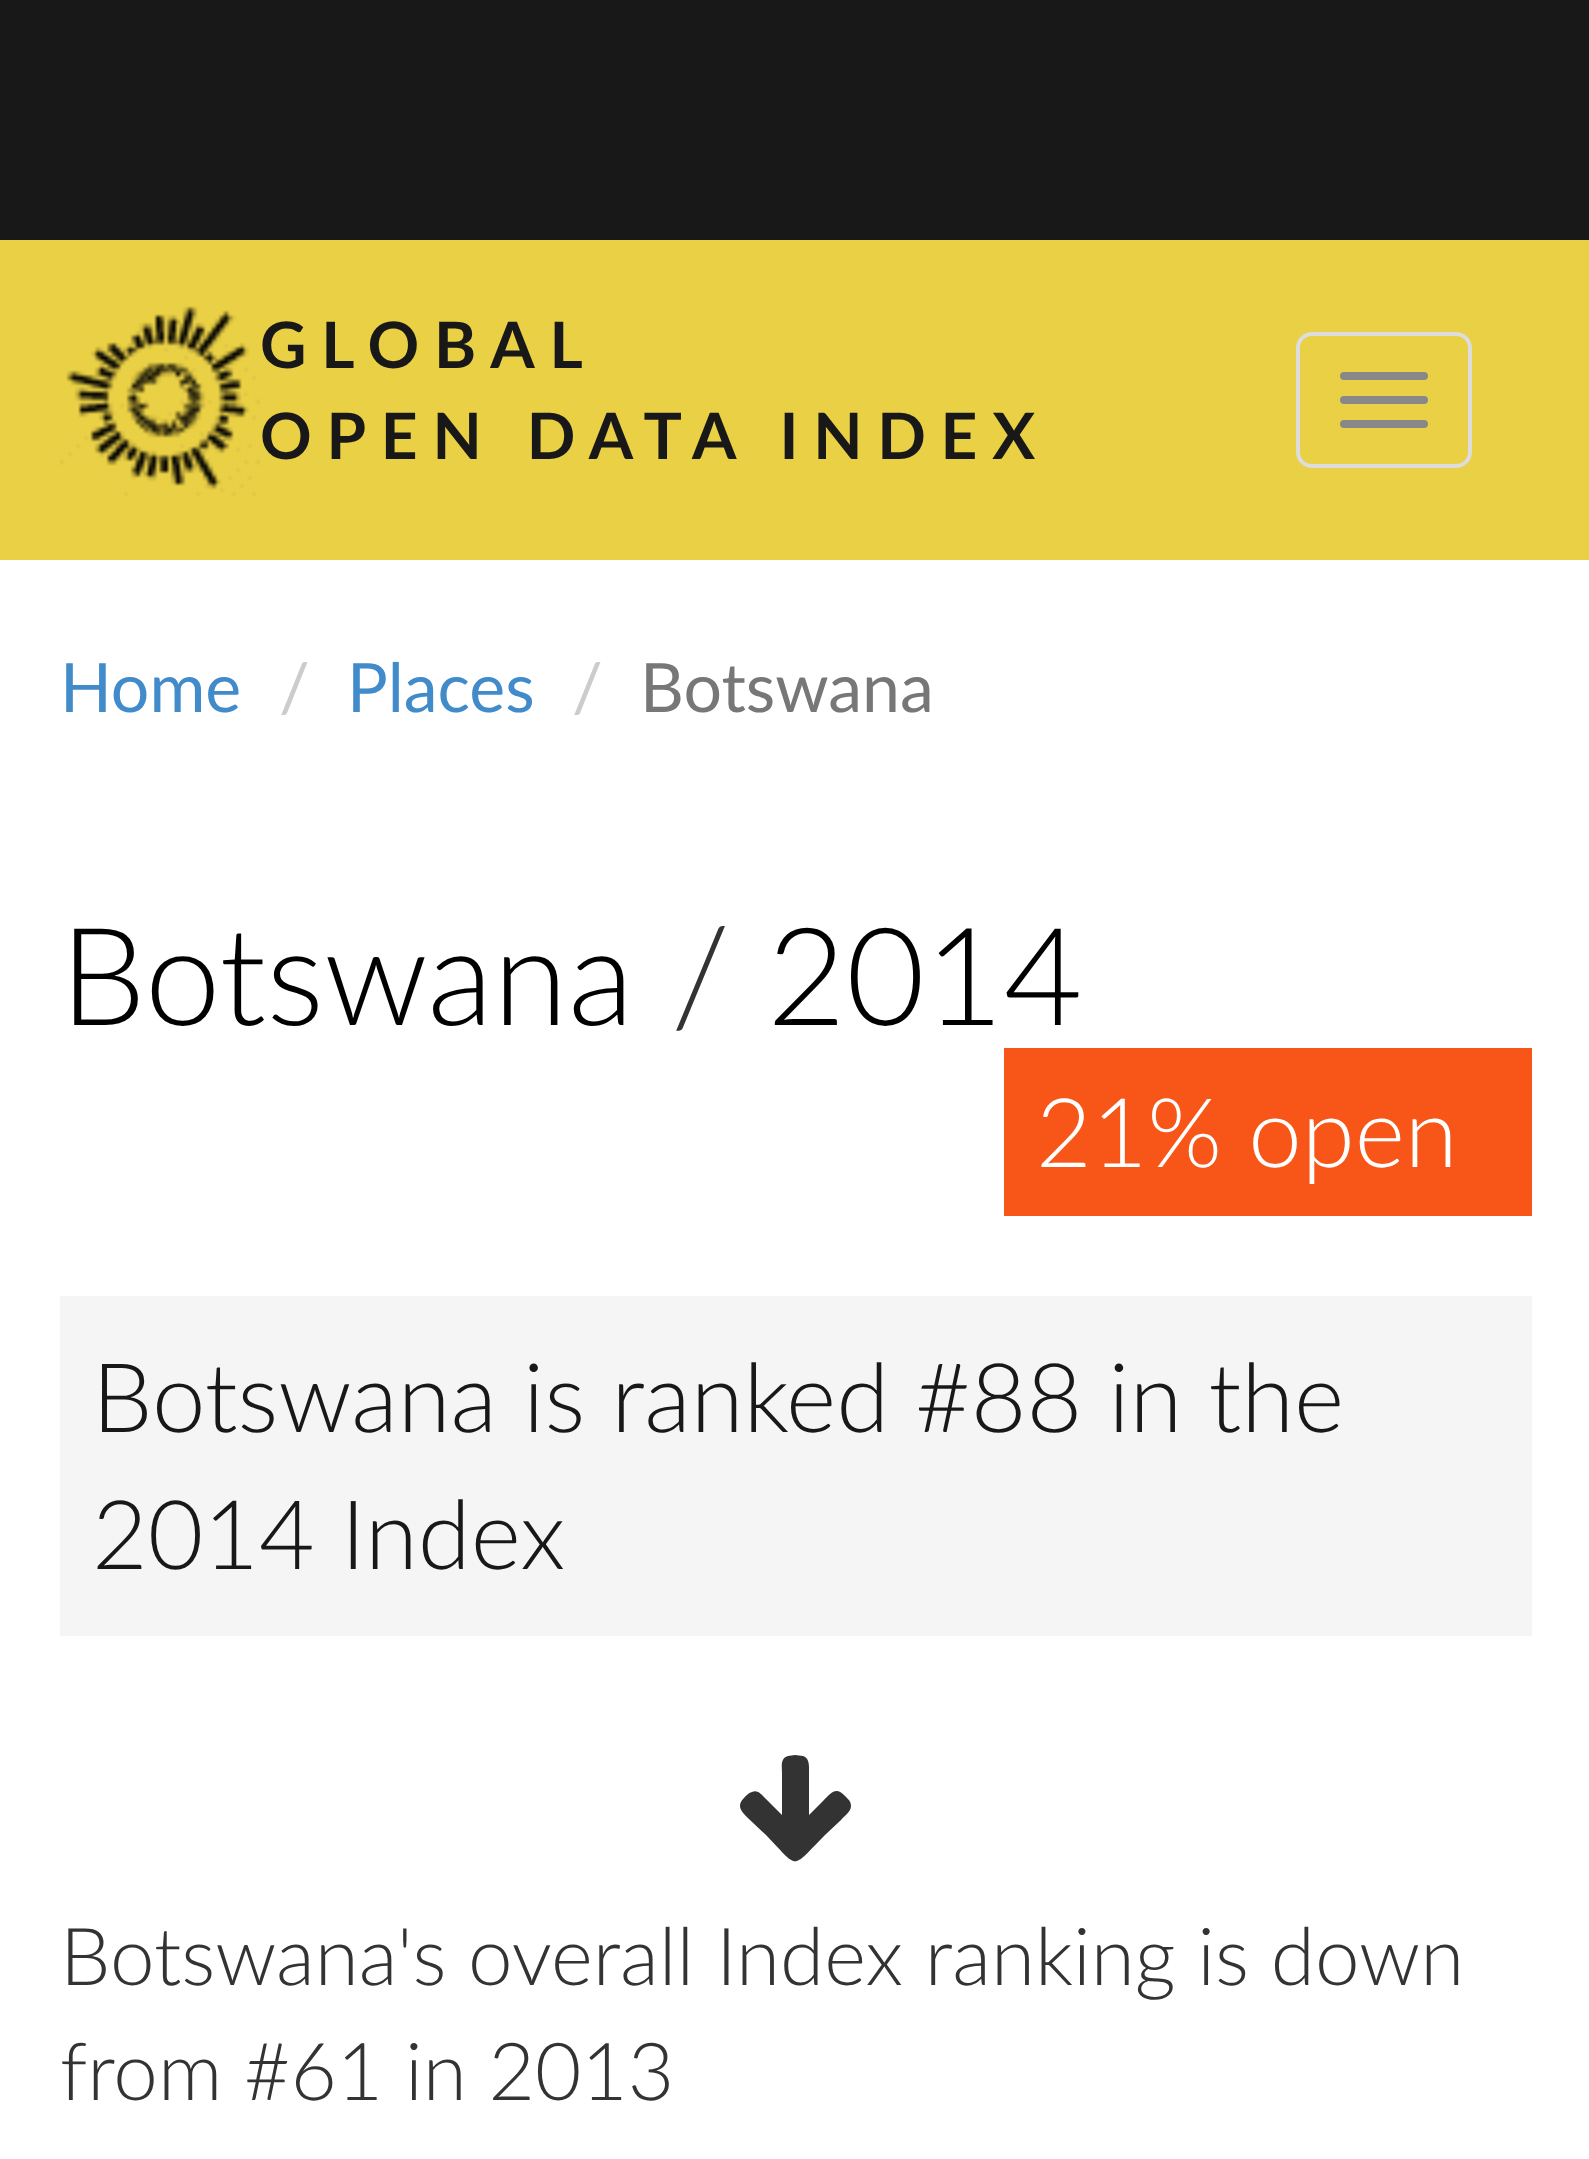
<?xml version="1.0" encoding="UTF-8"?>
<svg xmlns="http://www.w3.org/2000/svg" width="1589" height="2159">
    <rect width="100%" height="100%" fill="#FFFFFF"/>
    <rect x="0" y="0" width="1589" height="240" fill="#181818"/>
    <rect x="0" y="240" width="1589" height="320" fill="#EAD045"/>
    <image x="60" y="306" width="200" height="190" href="img_01.png"/>
    <text font-family="Lato" font-size="64" font-weight="700" letter-spacing="14.75" fill="#181818">
        <tspan x="260" y="368">GLOBAL</tspan>
        <tspan x="260" y="459">OPEN DATA INDEX</tspan>
    </text>
    <rect x="1298" y="334" width="172" height="132" rx="14" fill="none" stroke="#DDDDDD" stroke-width="4"/>
    <rect x="1340" y="372" width="88" height="8" rx="4" fill="#888888"/>
    <rect x="1340" y="396" width="88" height="8" rx="4" fill="#888888"/>
    <rect x="1340" y="420" width="88" height="8" rx="4" fill="#888888"/>
    <text x="60" y="712" font-family="Lato" font-size="68" fill="#428BCA">Home</text>
    <text x="279" y="712" font-family="Lato" font-size="68" fill="#CCCCCC">/</text>
    <text x="347" y="712" font-family="Lato" font-size="68" fill="#428BCA">Places</text>
    <text x="572" y="712" font-family="Lato" font-size="68" fill="#CCCCCC">/</text>
    <text x="640" y="712" font-family="Lato" font-size="68" fill="#777777">Botswana</text>
    <text x="60" y="1025" font-family="Lato" font-size="136" font-weight="300" fill="#000000">Botswana</text>
    <text x="671" y="1025" font-family="Lato" font-size="136" font-weight="300" fill="#333333">/</text>
    <text x="767" y="1025" font-family="Lato" font-size="136" font-weight="300" fill="#000000">2014</text>
    <rect x="1004" y="1048" width="528" height="168" fill="#F75618"/>
    <text x="1036" y="1167" font-family="Lato" font-size="96" font-weight="300" fill="#FFFFFF">21% open</text>
    <rect x="60" y="1296" width="1472" height="340" fill="#F5F5F5"/>
    <text font-family="Lato" font-size="96" font-weight="300" fill="#181818">
        <tspan x="92" y="1432">Botswana is ranked #88 in the</tspan>
        <tspan x="92" y="1569">2014 Index</tspan>
    </text>
    <path d="M 851 1806 C 851 1812 844 1816 841 1820 L 825 1835 C 790 1870 800 1870 766 1835 L 750 1820 C 743 1813 735 1807 744 1798 C 746 1796 748 1793 752 1792 C 759 1789 763 1797 768 1801 L 782 1815 V 1773 C 782 1767 780 1758 788 1756 L 795 1755 L 803 1756 C 810 1758 809 1767 809 1773 V 1815 L 823 1801 C 831 1793 836 1786 845 1796 C 848 1799 851 1801 851 1806 Z" fill="#333333"/>
    <text font-family="Lato" font-size="80" font-weight="300" fill="#333333">
        <tspan x="60" y="1985">Botswana's overall Index ranking is down</tspan>
        <tspan x="60" y="2100">from #61 in 2013</tspan>
    </text>
</svg>
